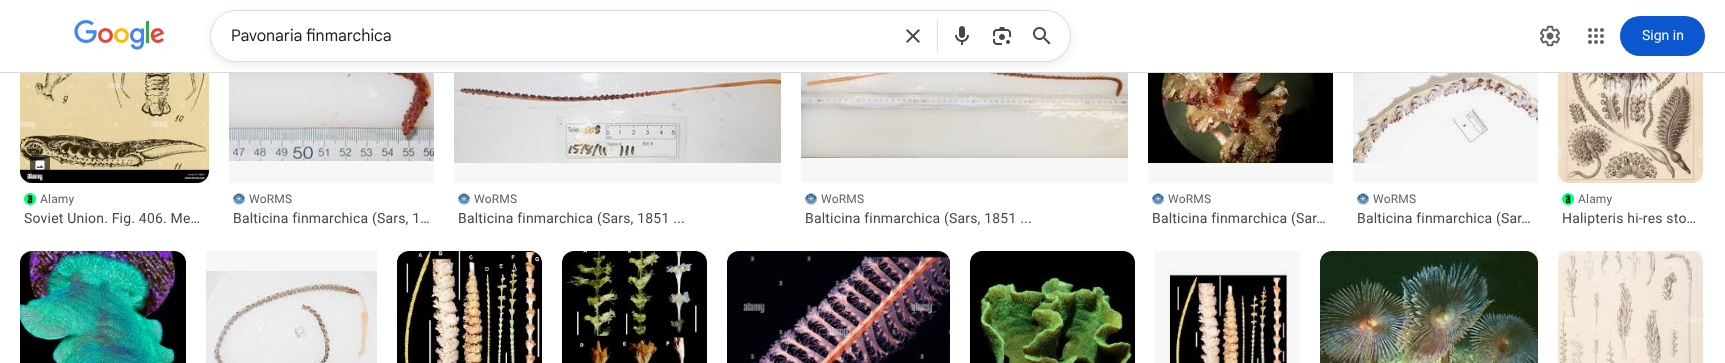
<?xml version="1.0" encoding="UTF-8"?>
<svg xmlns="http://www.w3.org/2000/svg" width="1725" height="363">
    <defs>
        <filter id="blur1" x="-50%" y="-200%" width="200%" height="500%"><feGaussianBlur stdDeviation="5"/></filter>
    </defs>
    <rect width="100%" height="100%" fill="#FFFFFF"/>
    <rect x="0" y="72" width="1725" height="1" fill="#DADCE0"/>
    <image x="74" y="20" width="90" height="30" href="img_01.png"/>
    <image x="20" y="73" width="189" height="110" href="img_08.png"/>
    <rect x="20" y="73" width="189" height="110" fill="#000000" fill-opacity="0.03"/>
    <image x="229" y="73" width="205" height="88" href="img_11.png"/>
    <rect x="229" y="73" width="205" height="110" fill="#000000" fill-opacity="0.03"/>
    <image x="454" y="73" width="327" height="90" href="img_13.png"/>
    <rect x="454" y="73" width="327" height="110" fill="#000000" fill-opacity="0.03"/>
    <image x="801" y="73" width="327" height="85" href="img_15.png"/>
    <rect x="801" y="73" width="327" height="110" fill="#000000" fill-opacity="0.03"/>
    <rect x="210" y="13" width="861" height="52" rx="26" fill="#1F1F1F" fill-opacity="0.08" filter="url(#blur1)"/>
    <rect x="210.5" y="10.5" width="860" height="51" rx="25.5" fill="#FFFFFF" stroke="#DADCE0"/>
    <text x="231" y="41" font-family="Google Sans" font-size="16" fill="#212121">Pavonaria finmarchica</text>
    <image x="906" y="29" width="14" height="14" href="img_02.png"/>
    <rect x="937" y="20" width="1" height="32" fill="#DADCE0"/>
    <image x="955" y="26" width="14" height="19" href="img_03.png"/>
    <image x="993" y="27" width="18" height="18" href="img_04.png"/>
    <image x="1033" y="27" width="18" height="18" href="img_05.png"/>
    <image x="1540" y="25" width="20" height="22" href="img_06.png"/>
    <image x="1588" y="28" width="16" height="16" href="img_07.png"/>
    <rect x="1620" y="16" width="85" height="40" rx="20" fill="#0B57D0"/>
    <text x="1642" y="40" font-family="Roboto" font-size="14" fill="#FFFFFF">Sign in</text>
    <rect x="30" y="155" width="20" height="20" rx="4" fill="#000000" fill-opacity="0.6"/>
    <image x="35" y="160" width="10" height="10" href="img_09.png"/>
    <image x="24" y="193" width="12" height="12" href="img_10.png"/>
    <text x="40" y="203" font-family="Roboto" font-size="12" letter-spacing="0.2" fill="#5E5E5E">Alamy</text>
    <text x="24" y="223" font-family="Roboto" font-size="14" letter-spacing="0.2" fill="#474747">Soviet Union. Fig. 406. Me…</text>
    <image x="233" y="193" width="12" height="12" href="img_12.png"/>
    <text x="249" y="203" font-family="Roboto" font-size="12" letter-spacing="0.2" fill="#5E5E5E">WoRMS</text>
    <text x="233" y="223" font-family="Roboto" font-size="14" letter-spacing="0.2" fill="#474747">Balticina finmarchica (Sars, 1…</text>
    <image x="458" y="193" width="12" height="12" href="img_14.png"/>
    <text x="474" y="203" font-family="Roboto" font-size="12" letter-spacing="0.2" fill="#5E5E5E">WoRMS</text>
    <text x="458" y="223" font-family="Roboto" font-size="14" letter-spacing="0.2" fill="#474747">Balticina finmarchica (Sars, 1851 ...</text>
    <image x="805" y="193" width="12" height="12" href="img_12.png"/>
    <text x="821" y="203" font-family="Roboto" font-size="12" letter-spacing="0.2" fill="#5E5E5E">WoRMS</text>
    <text x="805" y="223" font-family="Roboto" font-size="14" letter-spacing="0.2" fill="#474747">Balticina finmarchica (Sars, 1851 ...</text>
    <image x="1148" y="73" width="185" height="90" href="img_16.png"/>
    <rect x="1148" y="73" width="185" height="110" fill="#000000" fill-opacity="0.03"/>
    <image x="1152" y="193" width="12" height="12" href="img_12.png"/>
    <text x="1168" y="203" font-family="Roboto" font-size="12" letter-spacing="0.2" fill="#5E5E5E">WoRMS</text>
    <text x="1152" y="223" font-family="Roboto" font-size="14" letter-spacing="0.2" fill="#474747">Balticina finmarchica (Sar…</text>
    <image x="1353" y="73" width="185" height="90" href="img_17.png"/>
    <rect x="1353" y="73" width="185" height="110" fill="#000000" fill-opacity="0.03"/>
    <image x="1357" y="193" width="12" height="12" href="img_14.png"/>
    <text x="1373" y="203" font-family="Roboto" font-size="12" letter-spacing="0.2" fill="#5E5E5E">WoRMS</text>
    <text x="1357" y="223" font-family="Roboto" font-size="14" letter-spacing="0.2" fill="#474747">Balticina finmarchica (Sar…</text>
    <image x="1558" y="73" width="145" height="110" href="img_18.png"/>
    <rect x="1558" y="73" width="145" height="110" fill="#000000" fill-opacity="0.03"/>
    <image x="1562" y="193" width="12" height="12" href="img_19.png"/>
    <text x="1578" y="203" font-family="Roboto" font-size="12" letter-spacing="0.2" fill="#5E5E5E">Alamy</text>
    <text x="1562" y="223" font-family="Roboto" font-size="14" letter-spacing="0.2" fill="#474747">Halipteris hi-res sto…</text>
    <image x="20" y="251" width="166" height="112" href="img_20.png"/>
    <rect x="20" y="251" width="166" height="112" fill="#000000" fill-opacity="0.03"/>
    <image x="206" y="271" width="171" height="92" href="img_21.png"/>
    <rect x="206" y="251" width="171" height="112" fill="#000000" fill-opacity="0.03"/>
    <image x="397" y="251" width="145" height="112" href="img_22.png"/>
    <rect x="397" y="251" width="145" height="112" fill="#000000" fill-opacity="0.03"/>
    <image x="562" y="251" width="145" height="112" href="img_23.png"/>
    <rect x="562" y="251" width="145" height="112" fill="#000000" fill-opacity="0.03"/>
    <image x="727" y="251" width="223" height="112" href="img_24.png"/>
    <rect x="727" y="251" width="223" height="112" fill="#000000" fill-opacity="0.03"/>
    <image x="970" y="251" width="165" height="112" href="img_25.png"/>
    <rect x="970" y="251" width="165" height="112" fill="#000000" fill-opacity="0.03"/>
    <image x="1168" y="270" width="120" height="93" href="img_26.png"/>
    <rect x="1155" y="251" width="145" height="112" fill="#000000" fill-opacity="0.03"/>
    <image x="1320" y="251" width="218" height="112" href="img_27.png"/>
    <rect x="1320" y="251" width="218" height="112" fill="#000000" fill-opacity="0.03"/>
    <image x="1558" y="251" width="145" height="112" href="img_28.png"/>
    <rect x="1558" y="251" width="145" height="112" fill="#000000" fill-opacity="0.03"/>
</svg>
